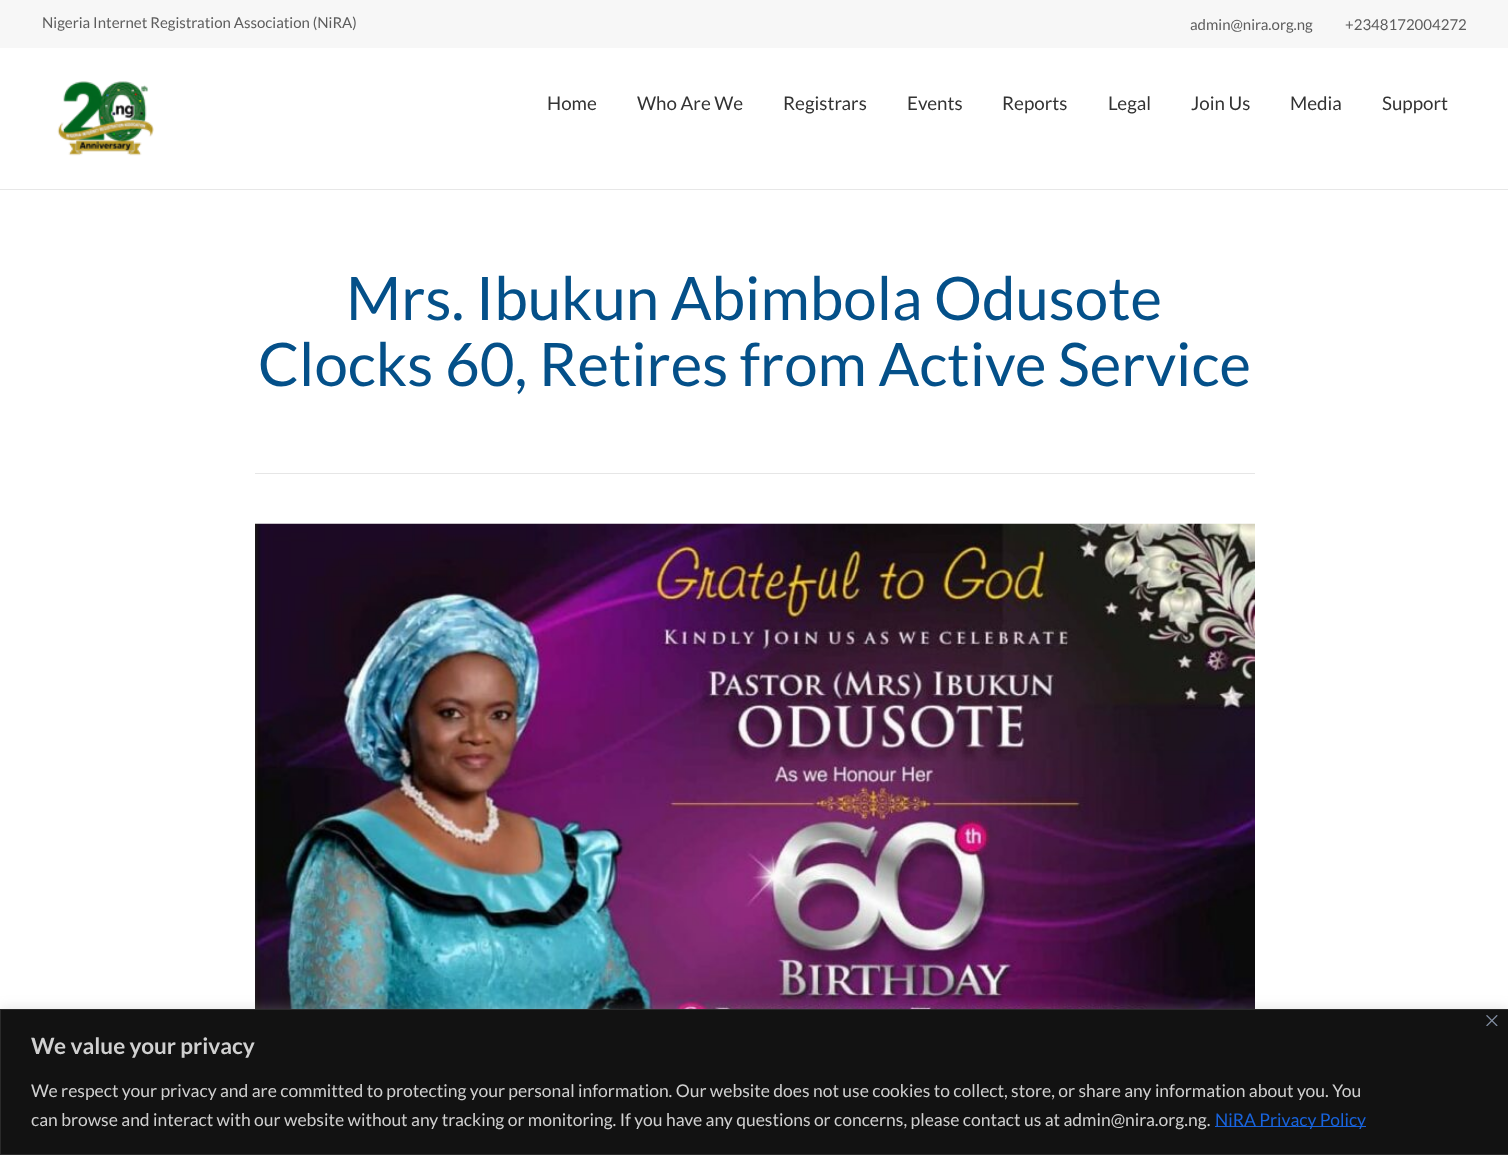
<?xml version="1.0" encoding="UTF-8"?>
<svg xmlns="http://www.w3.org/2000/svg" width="1508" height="1155">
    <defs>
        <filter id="blur1" x="-50%" y="-200%" width="200%" height="500%"><feGaussianBlur stdDeviation="6"/></filter>
    </defs>
    <rect width="100%" height="100%" fill="#FFFFFF"/>
    <rect x="0" y="189" width="1508" height="1" fill="#E7E7E7"/>
    <rect x="0" y="0" width="1508" height="48" fill="#F7F7F7"/>
    <text x="42" y="28" font-family="Lato" font-size="15" fill="#5D5D5D">Nigeria Internet Registration Association (NiRA)</text>
    <text x="1190" y="30" font-family="Lato" font-size="15" fill="#5D5D5D">admin@nira.org.ng</text>
    <text x="1345" y="30" font-family="Lato" font-size="15" fill="#5D5D5D">+2348172004272</text>
    <image x="57" y="81" width="97" height="75" href="img_01.png"/>
    <text x="547" y="110" font-family="Lato" font-size="18.75" fill="#333333">Home</text>
    <text x="637" y="110" font-family="Lato" font-size="18.75" fill="#333333">Who Are We</text>
    <text x="783" y="110" font-family="Lato" font-size="18.75" fill="#333333">Registrars</text>
    <text x="907" y="110" font-family="Lato" font-size="18.75" fill="#333333">Events</text>
    <text x="1002" y="110" font-family="Lato" font-size="18.75" fill="#333333">Reports</text>
    <text x="1108" y="110" font-family="Lato" font-size="18.75" fill="#333333">Legal</text>
    <text x="1191" y="110" font-family="Lato" font-size="18.75" fill="#333333">Join Us</text>
    <text x="1290" y="110" font-family="Lato" font-size="18.75" fill="#333333">Media</text>
    <text x="1382" y="110" font-family="Lato" font-size="18.75" fill="#333333">Support</text>
    <rect x="255" y="473" width="1000" height="1" fill="#E6E6E6"/>
    <text x="346" y="320" font-family="Lato" font-size="60" fill="#045089">Mrs. Ibukun Abimbola Odusote</text>
    <text x="258" y="386" font-family="Lato" font-size="60" fill="#045089">Clocks 60, Retires from Active Service</text>
    <image x="255" y="523" width="1000" height="486" href="img_02.png"/>
    <rect x="0" y="1008" width="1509" height="146" fill="#ACABAB" fill-opacity="0.3" filter="url(#blur1)"/>
    <rect x="0.5" y="1009.5" width="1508" height="145" fill="#121212" stroke="#2A2A2A"/>
    <image x="1486" y="1015" width="12" height="11" href="img_03.png"/>
    <text x="31" y="1054" font-family="Lato" font-size="22.5" font-weight="700" fill="#D0D0D0">We value your privacy</text>
    <text font-family="Lato" font-size="17.5" fill="#D0D0D0">
        <tspan x="31" y="1097">We respect your privacy and are committed to protecting your personal information. Our website does not use cookies to collect, store, or share any information about you. You</tspan>
        <tspan x="31" y="1126">can browse and interact with our website without any tracking or monitoring. If you have any questions or concerns, please contact us at admin@nira.org.ng.</tspan>
    </text>
    <rect x="1215" y="1126" width="151" height="1" fill="#1863DC"/>
    <text x="1215" y="1126" font-family="Lato" font-size="17.5" fill="#1863DC">NiRA Privacy Policy</text>
</svg>
